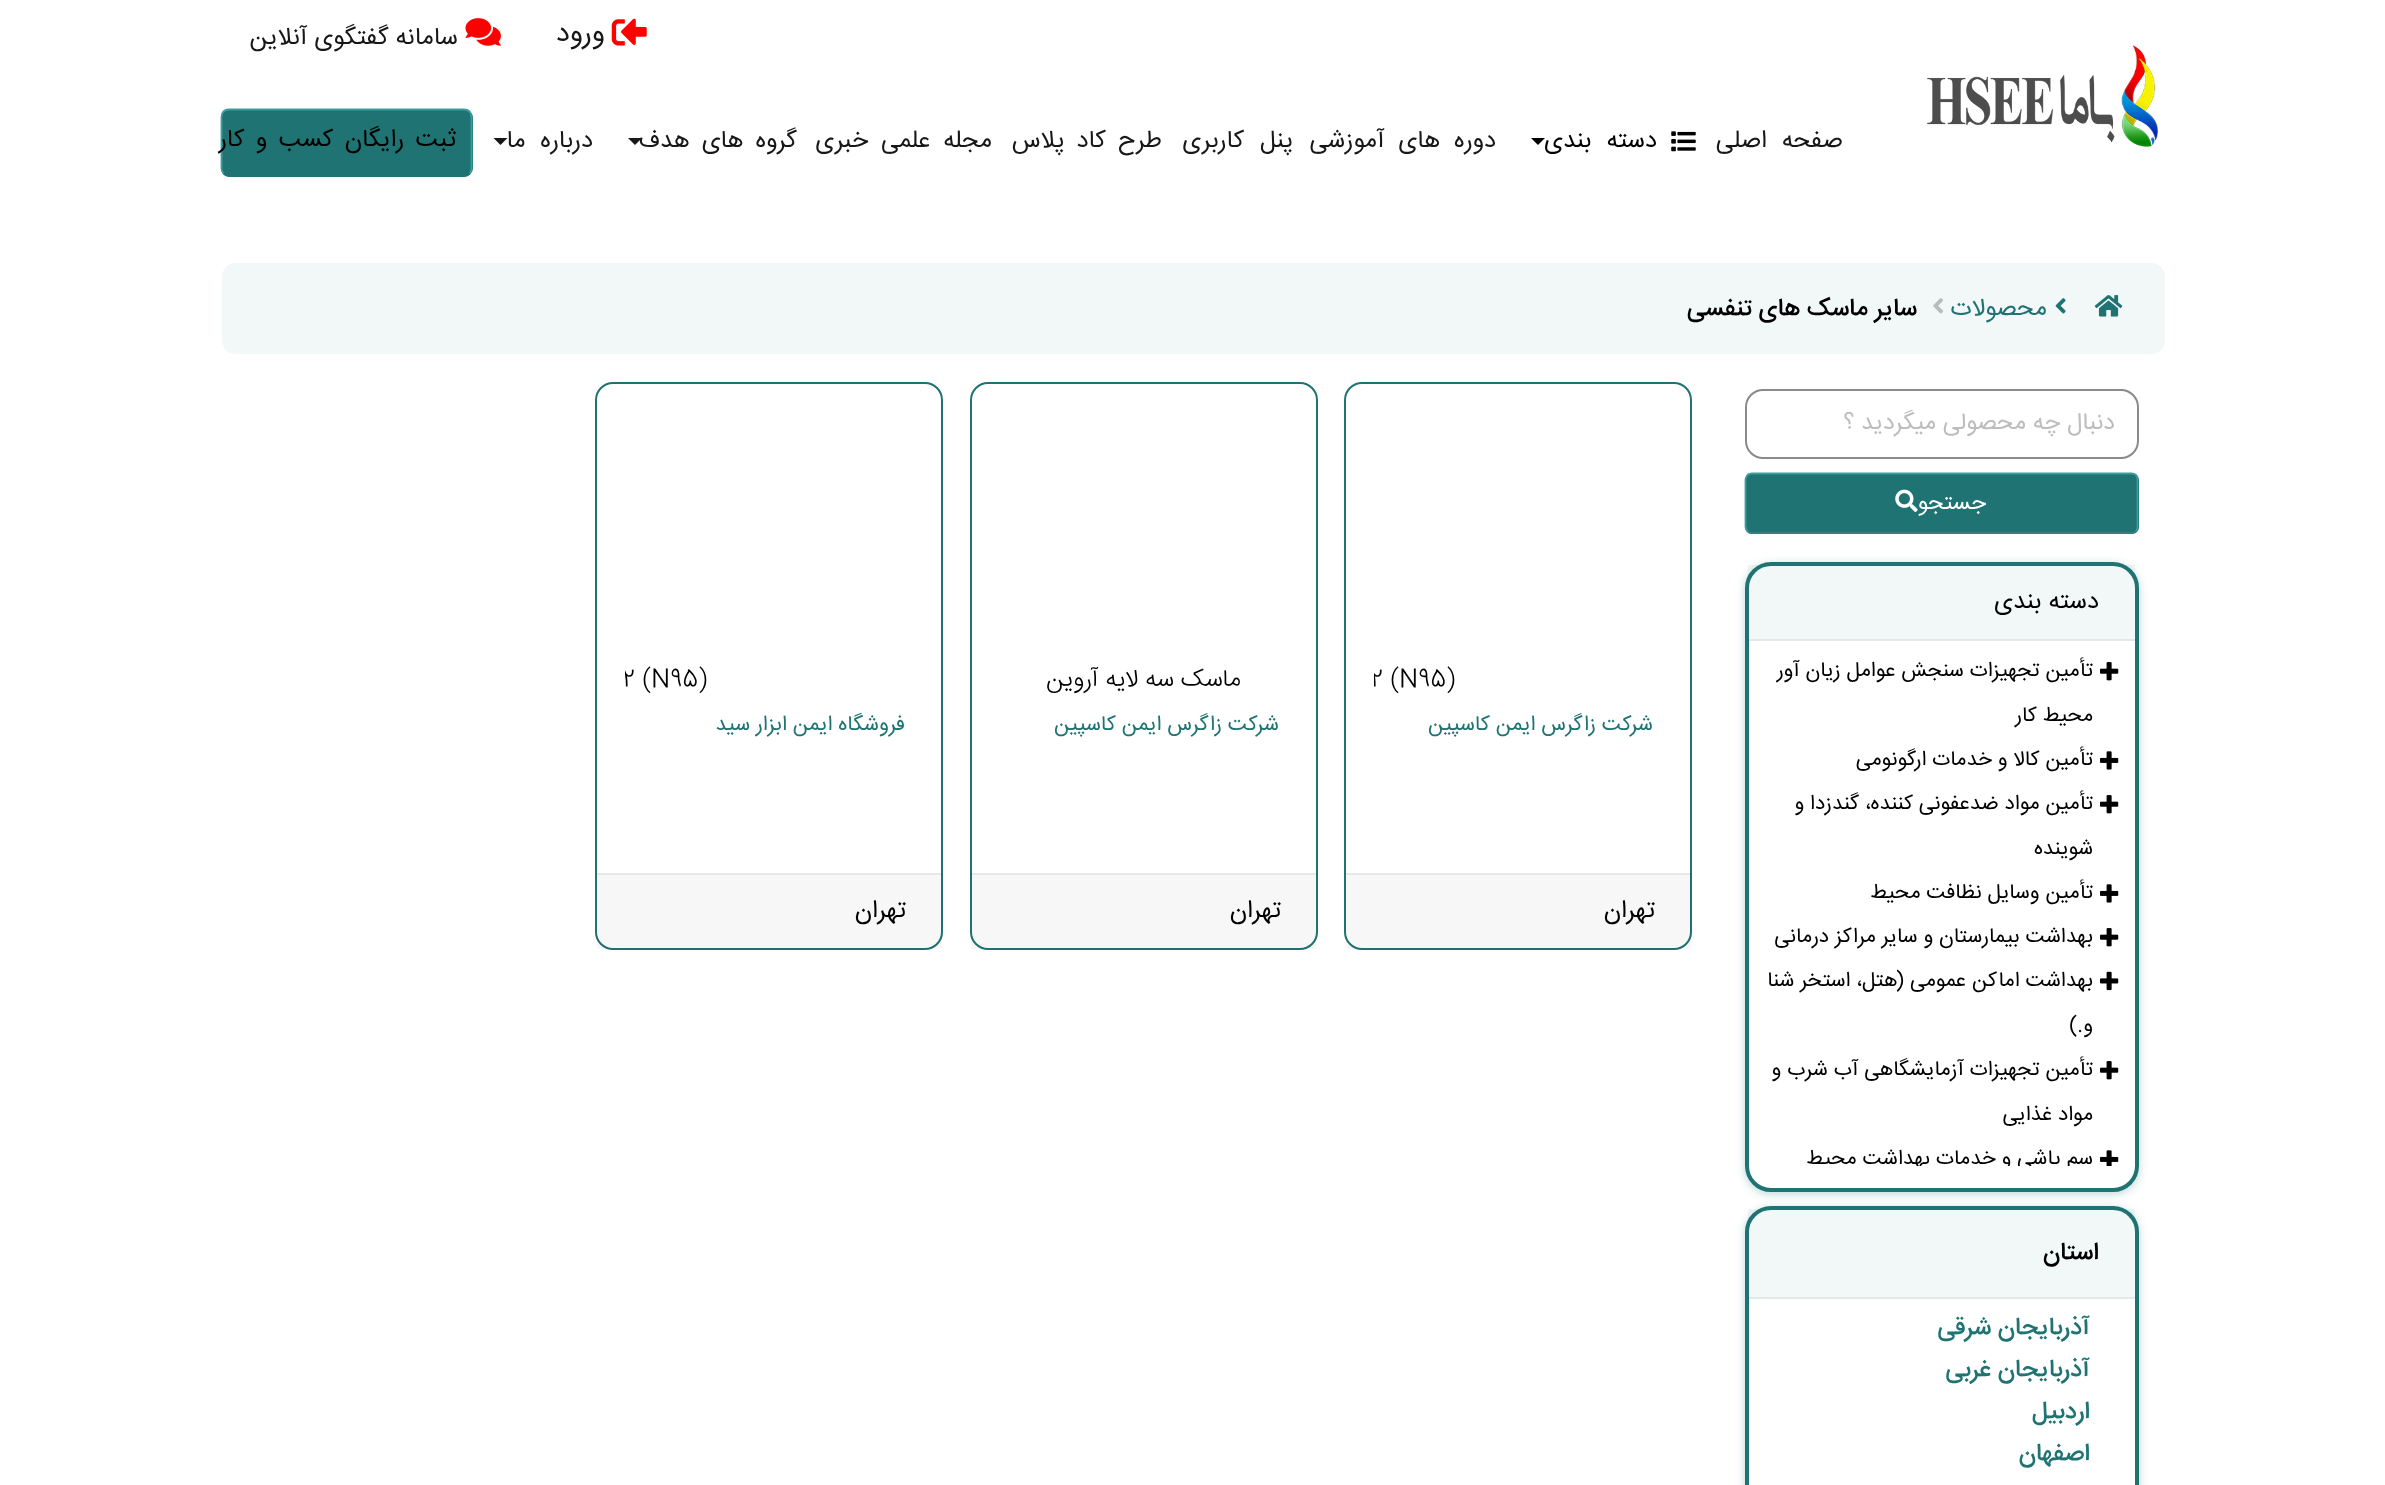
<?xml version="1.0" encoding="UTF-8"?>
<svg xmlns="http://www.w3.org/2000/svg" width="2385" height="1485">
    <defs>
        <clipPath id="clip1"><path d="M 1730 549 H 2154 V 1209 H 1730 Z M 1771 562 H 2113 C 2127.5 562 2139 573.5 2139 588 V 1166 C 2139 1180.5 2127.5 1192 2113 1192 H 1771 C 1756.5 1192 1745 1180.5 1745 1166 V 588 C 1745 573.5 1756.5 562 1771 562 Z" clip-rule="evenodd"/></clipPath>
        <filter id="blur1" x="-50%" y="-200%" width="200%" height="500%"><feGaussianBlur stdDeviation="4.5"/></filter>
        <clipPath id="clip2"><rect x="1748" y="641" width="387" height="525"/></clipPath>
        <clipPath id="clip3"><path d="M 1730 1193 H 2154 V 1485 H 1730 Z M 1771 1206 H 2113 C 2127.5 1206 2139 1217.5 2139 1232 V 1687 C 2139 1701.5 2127.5 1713 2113 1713 H 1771 C 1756.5 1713 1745 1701.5 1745 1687 V 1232 C 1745 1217.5 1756.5 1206 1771 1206 Z" clip-rule="evenodd"/></clipPath>
        <clipPath id="clip4"><rect x="1374" y="660" width="289" height="44"/></clipPath>
        <clipPath id="clip5"><rect x="625" y="660" width="289" height="44"/></clipPath>
    </defs>
    <rect width="100%" height="100%" fill="#FFFFFF"/>
    <image x="1927" y="45" width="231" height="102" href="img_01.png"/>
    <image x="611" y="18" width="36" height="28" href="img_02.png"/>
    <text x="605" y="41" font-family="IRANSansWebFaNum" font-size="28" direction="rtl" fill="#171717">ورود</text>
    <image x="465" y="18" width="36" height="28" href="img_03.png"/>
    <text x="458" y="44" font-family="IRANSansWebFaNum" font-size="24.5" direction="rtl" fill="#171717">سامانه گفتگوی آنلاین</text>
    <text x="1843" y="147" word-spacing="8" font-family="IRANSansWebFaNum" font-size="24.5" letter-spacing="-0.9" direction="rtl" fill="#171717">صفحه اصلی</text>
    <image x="1671" y="131" width="25" height="21" href="img_04.png"/>
    <text x="1657" y="147" word-spacing="8" font-family="IRANSansWebFaNum" font-size="24.5" letter-spacing="-0.9" direction="rtl" fill="#000000">دسته بندی</text>
    <path d="M 1531 138 H 1545 L 1538 145 Z" fill="#000000"/>
    <text x="1496" y="147" word-spacing="7" font-family="IRANSansWebFaNum" font-size="24.5" letter-spacing="-0.9" direction="rtl" fill="#171717">دوره های آموزشی</text>
    <text x="1293" y="147" word-spacing="9" font-family="IRANSansWebFaNum" font-size="24.5" letter-spacing="-0.9" direction="rtl" fill="#171717">پنل کاربری</text>
    <text x="1162" y="147" word-spacing="5" font-family="IRANSansWebFaNum" font-size="24.5" letter-spacing="-0.9" direction="rtl" fill="#171717">طرح کاد پلاس</text>
    <text x="992" y="147" word-spacing="6" font-family="IRANSansWebFaNum" font-size="24.5" letter-spacing="-0.9" direction="rtl" fill="#171717">مجله علمی خبری</text>
    <text x="797" y="147" word-spacing="5" font-family="IRANSansWebFaNum" font-size="24.5" letter-spacing="-0.9" direction="rtl" fill="#171717">گروه های هدف</text>
    <path d="M 628 138 H 642 L 635 145 Z" fill="#171717"/>
    <text x="593" y="147" word-spacing="8" font-family="IRANSansWebFaNum" font-size="24.5" letter-spacing="-0.9" direction="rtl" fill="#171717">درباره ما</text>
    <path d="M 493.5 138 H 507.5 L 500.5 145 Z" fill="#171717"/>
    <rect x="221" y="109" width="252" height="68" rx="9" fill="#1F7373"/>
    <path d="M 469.5 173.5 C 468 175 466 176 464 176 H 229 C 227 176 225 175 223.5 173.5" fill="none" stroke="#1F7373" stroke-width="1.8"/>
    <path d="M 223.5 173.5 C 222 172 221.5 170 221.5 168 V 117 C 221.5 115 222 113 223.5 111.5 C 225 110 227 109.5 229 109.5 H 464 C 466 109.5 468 110 469.5 111.5 C 471 113 471.5 115 471.5 117 V 168 C 471.5 170 471 172 469.5 173.5" fill="none" stroke="#3E9C9E" stroke-width="1.8"/>
    <text x="456" y="146" word-spacing="4.5" font-family="IRANSansWebFaNum" font-size="24.5" letter-spacing="-0.9" direction="rtl" fill="#000000">ثبت رایگان کسب و کار</text>
    <rect x="222" y="263" width="1943" height="91" rx="14" fill="#F2F7F7"/>
    <image x="2094" y="295" width="29" height="22" href="img_05.png"/>
    <image x="2055" y="298" width="11" height="16" href="img_06.png"/>
    <text x="2047" y="315" font-family="IRANSansWebFaNum" font-size="24.5" direction="rtl" fill="#1F7373">محصولات</text>
    <image x="1933" y="298" width="10" height="16" href="img_07.png"/>
    <text x="1917" y="315" font-family="IRANSansWebFaNum" font-size="24.5" font-weight="500" direction="rtl" fill="#000000">سایر ماسک های تنفسی</text>
    <rect x="1746" y="390" width="392" height="68" rx="17" fill="none" stroke="#8A8A8A" stroke-width="2"/>
    <text x="2115" y="429" font-family="IRANSansWebFaNum" font-size="23.75" direction="rtl" fill="#BDBDBD">دنبال چه محصولی میگردید ؟</text>
    <rect x="1745" y="473" width="394" height="61" rx="7" fill="#1F7373"/>
    <path d="M 2136 531 C 2134.5 532 2133 533 2131.5 533 H 1752 C 1750 533 1748.5 532 1747.5 531" fill="none" stroke="#387E80" stroke-width="1.8"/>
    <path d="M 1747.5 531 C 1746.5 530 1745.5 528.5 1745.5 527 V 479.5 C 1745.5 478 1746.5 476.5 1747.5 475 C 1748.5 474 1750 473.5 1752 473.5 H 2131.5 C 2133 473.5 2134.5 474 2136 475 C 2137 476.5 2137.5 478 2137.5 479.5 V 527 C 2137.5 528.5 2137 530 2136 531" fill="none" stroke="#3E9C9E" stroke-width="1.8"/>
    <text x="1986" y="509" font-family="IRANSansWebFaNum" font-size="22.5" direction="rtl" fill="#FFFFFF">جستجو</text>
    <image x="1895" y="489" width="23" height="23" href="img_08.png"/>
    <g clip-path="url(#clip1)">
        <rect x="1745" y="564" width="394" height="630" rx="26" fill="#207878" fill-opacity="0.29" filter="url(#blur1)"/>
    </g>
    <rect x="1747" y="564" width="390" height="626" rx="24" fill="none" stroke="#1F7373" stroke-width="4"/>
    <rect x="1748" y="565" width="387" height="76" fill="#1F7373" fill-opacity="0.06"/>
    <rect x="1748" y="639" width="387" height="2" fill="#000000" fill-opacity="0.06"/>
    <text x="2099" y="608" font-family="IRANSansWebFaNum" font-size="24.5" direction="rtl" fill="#000000">دسته بندی</text>
    <image x="2100" y="662" width="19" height="19" href="img_09.png"/>
    <text x="2093" y="676" font-family="IRANSansWebFaNum" font-size="20.8" direction="rtl" fill="#000000">تأمین تجهیزات سنجش عوامل زیان آور</text>
    <text x="2093" y="721" font-family="IRANSansWebFaNum" font-size="20.8" direction="rtl" fill="#000000">محیط کار</text>
    <image x="2100" y="751" width="19" height="19" href="img_10.png"/>
    <text x="2093" y="765" font-family="IRANSansWebFaNum" font-size="20.8" direction="rtl" fill="#000000">تأمین کالا و خدمات ارگونومی</text>
    <image x="2100" y="795" width="19" height="19" href="img_09.png"/>
    <text x="2093" y="809" font-family="IRANSansWebFaNum" font-size="20.8" direction="rtl" fill="#000000">تأمین مواد ضدعفونی کننده، گندزدا و</text>
    <text x="2093" y="854" font-family="IRANSansWebFaNum" font-size="20.8" direction="rtl" fill="#000000">شوینده</text>
    <image x="2100" y="884" width="19" height="19" href="img_10.png"/>
    <text x="2093" y="898" font-family="IRANSansWebFaNum" font-size="20.8" direction="rtl" fill="#000000">تأمین وسایل نظافت محیط</text>
    <image x="2100" y="928" width="19" height="19" href="img_09.png"/>
    <text x="2093" y="942" font-family="IRANSansWebFaNum" font-size="20.8" direction="rtl" fill="#000000">بهداشت بیمارستان و سایر مراکز درمانی</text>
    <image x="2100" y="971" width="19" height="20" href="img_11.png"/>
    <text x="2093" y="986" font-family="IRANSansWebFaNum" font-size="20.8" direction="rtl" fill="#000000">بهداشت اماکن عمومی (هتل، استخر شنا</text>
    <text x="2093" y="1031" font-family="IRANSansWebFaNum" font-size="20.8" direction="rtl" fill="#000000">و.)</text>
    <image x="2100" y="1061" width="19" height="19" href="img_09.png"/>
    <text x="2093" y="1075" font-family="IRANSansWebFaNum" font-size="20.8" direction="rtl" fill="#000000">تأمین تجهیزات آزمایشگاهی آب شرب و</text>
    <text x="2093" y="1120" font-family="IRANSansWebFaNum" font-size="20.8" direction="rtl" fill="#000000">مواد غذایی</text>
    <image x="2100" y="1150" width="19" height="16" href="img_12.png"/>
    <g clip-path="url(#clip2)">
        <text x="2093" y="1164" font-family="IRANSansWebFaNum" font-size="20.8" direction="rtl" fill="#000000">سم پاشی و خدمات بهداشت محیط</text>
    </g>
    <g clip-path="url(#clip3)">
        <rect x="1745" y="1208" width="394" height="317" rx="26" fill="#207878" fill-opacity="0.29" filter="url(#blur1)"/>
    </g>
    <rect x="1747" y="1208" width="390" height="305" rx="24" fill="none" stroke="#1F7373" stroke-width="4"/>
    <rect x="1748" y="1209" width="387" height="90" fill="#1F7373" fill-opacity="0.06"/>
    <rect x="1748" y="1297" width="387" height="2" fill="#000000" fill-opacity="0.06"/>
    <text x="2099" y="1259" font-family="IRANSansWebFaNum" font-size="24.5" font-weight="500" direction="rtl" fill="#000000">استان</text>
    <text font-family="IRANSansWebFaNum" font-size="24.5" font-weight="500" direction="rtl" fill="#1F7373">
        <tspan x="2090" y="1334">آذربایجان شرقی</tspan>
        <tspan x="2090" y="1376">آذربایجان غربی</tspan>
        <tspan x="2090" y="1418">اردبیل</tspan>
        <tspan x="2090" y="1460">اصفهان</tspan>
    </text>
    <rect x="1345" y="383" width="346" height="566" rx="17" fill="none" stroke="#1F7373" stroke-width="2"/>
    <g clip-path="url(#clip4)">
        <text x="1370" y="686" font-family="IRANSansWebFaNum" font-size="24.5" font-weight="300" fill="#000000">2 (N95)</text>
    </g>
    <text x="1653" y="730" font-family="IRANSansWebFaNum" font-size="21" direction="rtl" fill="#1F7373">شرکت زاگرس ایمن کاسپین</text>
    <rect x="1346" y="873" width="345" height="76" fill="#000000" fill-opacity="0.03"/>
    <rect x="1346" y="873" width="345" height="2" fill="#000000" fill-opacity="0.06"/>
    <text x="1655" y="917" font-family="IRANSansWebFaNum" font-size="24.5" direction="rtl" fill="#000000">تهران</text>
    <rect x="971" y="383" width="346" height="566" rx="17" fill="none" stroke="#1F7373" stroke-width="2"/>
    <text x="1241" y="686" font-family="IRANSansWebFaNum" font-size="24.5" font-weight="300" direction="rtl" fill="#000000">ماسک سه لایه آروین</text>
    <text x="1279" y="730" font-family="IRANSansWebFaNum" font-size="21" direction="rtl" fill="#1F7373">شرکت زاگرس ایمن کاسپین</text>
    <rect x="971" y="873" width="345" height="76" fill="#000000" fill-opacity="0.03"/>
    <rect x="971" y="873" width="345" height="2" fill="#000000" fill-opacity="0.06"/>
    <text x="1281" y="917" font-family="IRANSansWebFaNum" font-size="24.5" direction="rtl" fill="#000000">تهران</text>
    <rect x="596" y="383" width="346" height="566" rx="17" fill="none" stroke="#1F7373" stroke-width="2"/>
    <g clip-path="url(#clip5)">
        <text x="622" y="686" font-family="IRANSansWebFaNum" font-size="24.5" font-weight="300" fill="#000000">2 (N95)</text>
    </g>
    <text x="905" y="730" font-family="IRANSansWebFaNum" font-size="21" direction="rtl" fill="#1F7373">فروشگاه ایمن ابزار سید</text>
    <rect x="597" y="873" width="345" height="76" fill="#000000" fill-opacity="0.03"/>
    <rect x="597" y="873" width="345" height="2" fill="#000000" fill-opacity="0.06"/>
    <text x="906" y="917" font-family="IRANSansWebFaNum" font-size="24.5" direction="rtl" fill="#000000">تهران</text>
</svg>
